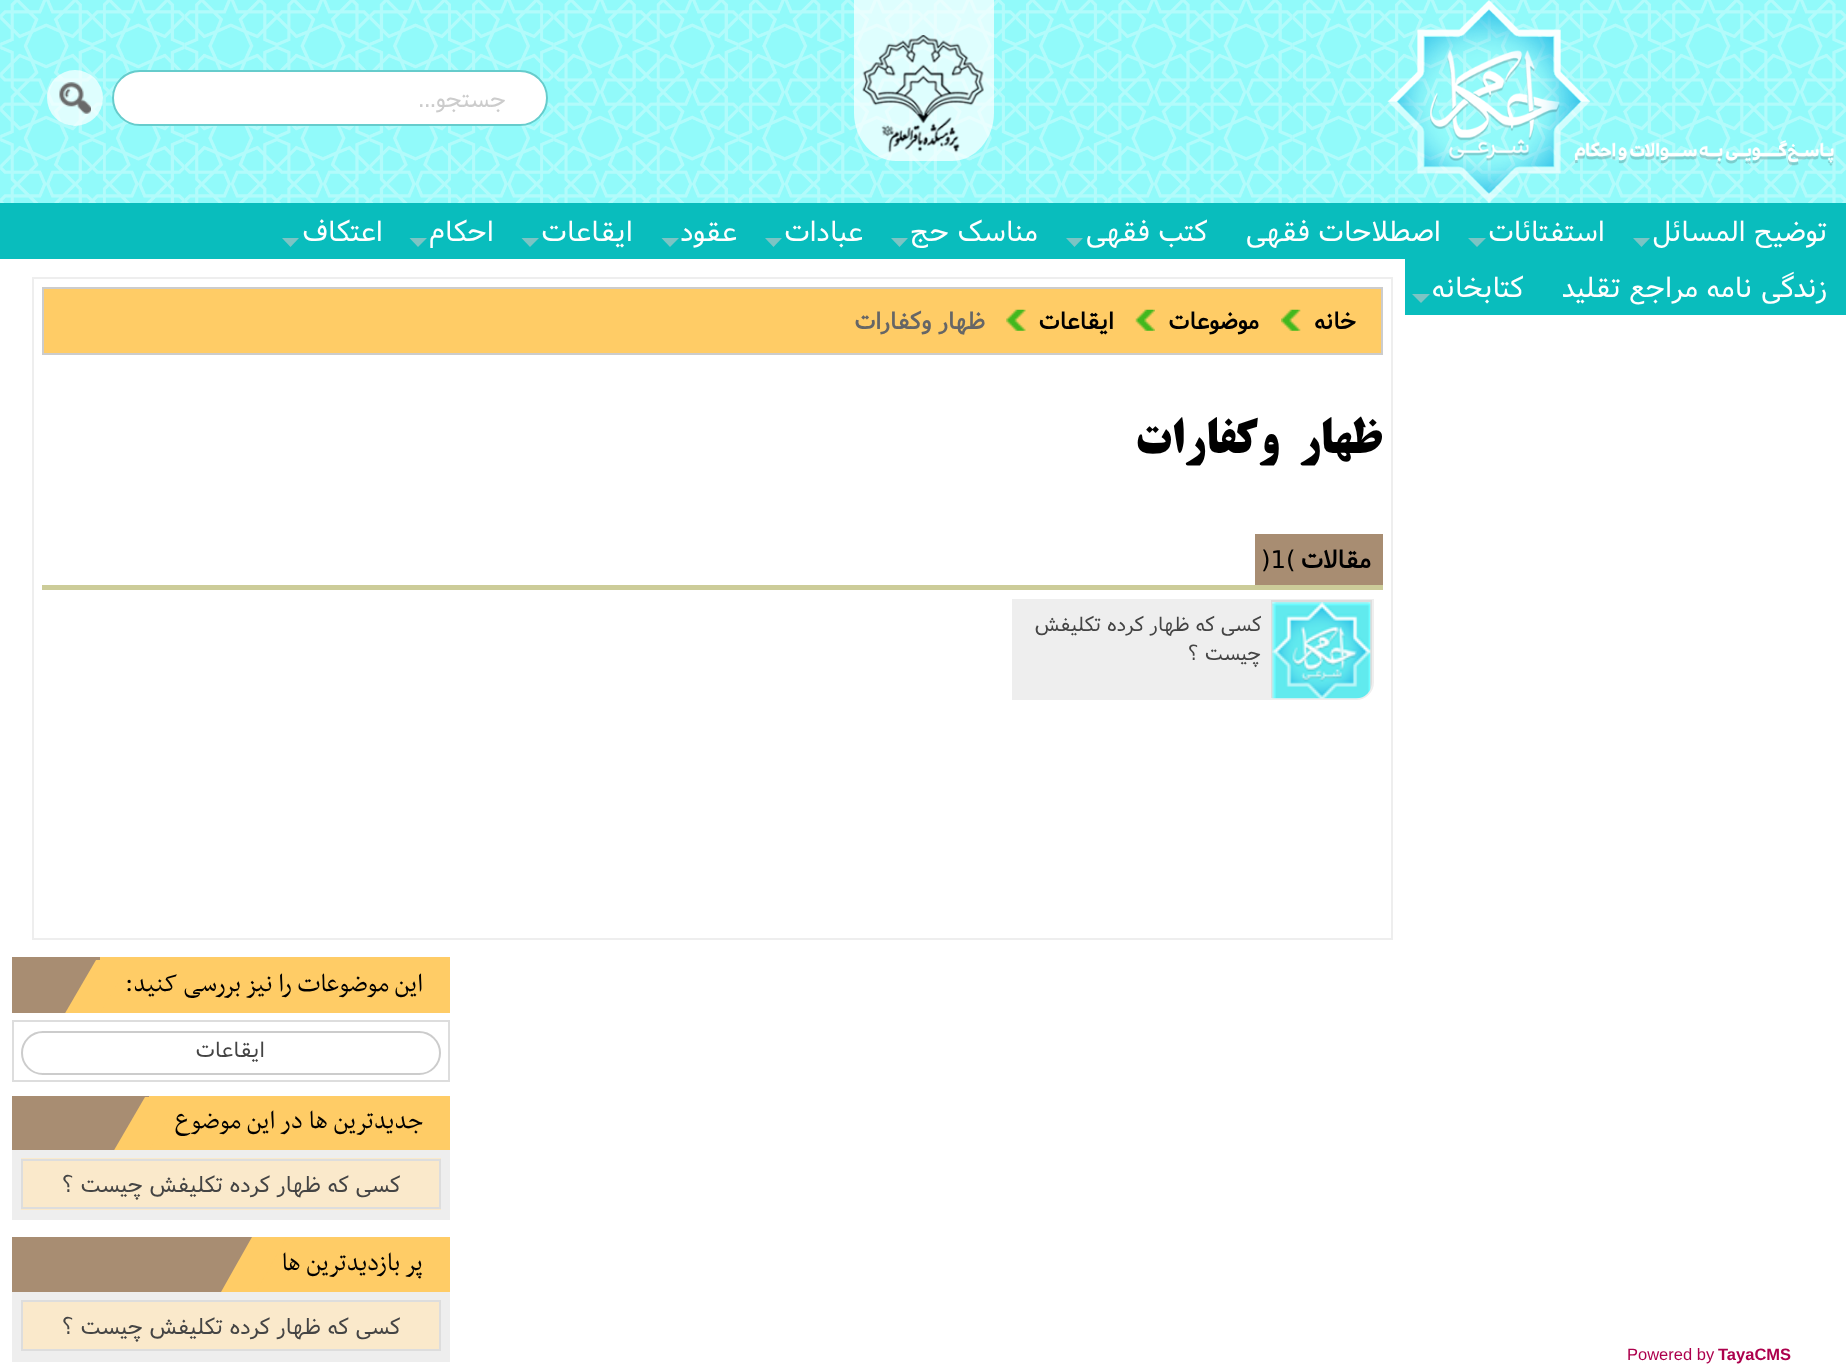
<?xml version="1.0" encoding="UTF-8"?>
<svg xmlns="http://www.w3.org/2000/svg" width="1846" height="1367">
    <defs>
        <clipPath id="clip1"><rect x="12" y="957" width="438" height="56"/></clipPath>
        <clipPath id="clip2"><rect x="12" y="1096" width="438" height="54"/></clipPath>
    </defs>
    <rect width="100%" height="100%" fill="#FFFFFF"/>
    <rect x="0" y="0" width="1846" height="203" fill="#91FAFA"/>
    <image x="0" y="0" width="1846" height="203" href="img_01.png"/>
    <image x="1387" y="0" width="447" height="203" href="img_02.png"/>
    <path d="M 854 0 H 994 V 113 C 994 139 975 161 952 161 H 896 C 873 161 854 139 854 113 Z" fill="#FFFFFF" fill-opacity="0.7"/>
    <image x="862" y="35" width="122" height="118" href="img_03.png"/>
    <circle cx="520" cy="98" r="27" fill="#FFFFFF" stroke="#66CCCC" stroke-width="2"/>
    <circle cx="140" cy="98" r="27" fill="#FFFFFF" stroke="#66CCCC" stroke-width="2"/>
    <rect x="140" y="72" width="380" height="52" fill="#FFFFFF"/>
    <rect x="140" y="70" width="380" height="2" fill="#66CCCC"/>
    <rect x="140" y="124" width="380" height="2" fill="#66CCCC"/>
    <text x="506" y="107" font-family="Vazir" font-size="24.5" direction="rtl" fill="#CCCCCC">جستجو...</text>
    <circle cx="75" cy="98" r="28" fill="#FFFFFF" fill-opacity="0.7"/>
    <image x="59" y="82" width="32" height="32" href="img_04.png"/>
    <rect x="0" y="203" width="1846" height="56" fill="#09BDBD"/>
    <text x="1827" y="241" font-family="Vazir" font-size="29.75" direction="rtl" fill="#FFFFFF">توضیح المسائل</text>
    <path d="M 1633 238 H 1650 L 1641.5 247 Z" fill="#7CC4C4"/>
    <text x="1605" y="241" font-family="Vazir" font-size="29.75" direction="rtl" fill="#FFFFFF">استفتائات</text>
    <path d="M 1468 238 H 1486 L 1477 247 Z" fill="#7CC4C4"/>
    <text x="1441" y="241" font-family="Vazir" font-size="29.75" direction="rtl" fill="#FFFFFF">اصطلاحات فقهی</text>
    <text x="1207" y="241" font-family="Vazir" font-size="29.75" direction="rtl" fill="#FFFFFF">کتب فقهی</text>
    <path d="M 1066 238 H 1083 L 1074.5 247 Z" fill="#7CC4C4"/>
    <text x="1038" y="241" font-family="Vazir" font-size="29.75" direction="rtl" fill="#FFFFFF">مناسک حج</text>
    <path d="M 891 238 H 908 L 899.5 247 Z" fill="#7CC4C4"/>
    <text x="863" y="241" font-family="Vazir" font-size="29.75" direction="rtl" fill="#FFFFFF">عبادات</text>
    <path d="M 765 238 H 782 L 773.5 247 Z" fill="#7CC4C4"/>
    <text x="737" y="241" font-family="Vazir" font-size="29.75" direction="rtl" fill="#FFFFFF">عقود</text>
    <path d="M 661.5 238 H 679 L 670 247 Z" fill="#7CC4C4"/>
    <text x="633" y="241" font-family="Vazir" font-size="29.75" direction="rtl" fill="#FFFFFF">ایقاعات</text>
    <path d="M 521.5 238 H 539 L 530 247 Z" fill="#7CC4C4"/>
    <text x="494" y="241" font-family="Vazir" font-size="29.75" direction="rtl" fill="#FFFFFF">احکام</text>
    <path d="M 409.5 238 H 427 L 418 247 Z" fill="#7CC4C4"/>
    <text x="383" y="241" font-family="Vazir" font-size="29.75" direction="rtl" fill="#FFFFFF">اعتکاف</text>
    <path d="M 282 238 H 299 L 290.5 247 Z" fill="#7CC4C4"/>
    <rect x="1405" y="259" width="441" height="56" fill="#09BDBD"/>
    <text x="1827" y="297" font-family="Vazir" font-size="29.75" direction="rtl" fill="#FFFFFF">زندگی نامه مراجع تقلید</text>
    <text x="1523" y="297" font-family="Vazir" font-size="29.75" direction="rtl" fill="#FFFFFF">کتابخانه</text>
    <path d="M 1412 294 H 1430 L 1421 303 Z" fill="#7CC4C4"/>
    <rect x="33" y="278" width="1359" height="661" fill="none" stroke="#EEEEEE" stroke-width="2"/>
    <rect x="43" y="288" width="1339" height="66" fill="#FFCC66" stroke="#CCCCCC" stroke-width="2"/>
    <text x="1356" y="329" font-family="Vazir" font-size="24.5" font-weight="700" direction="rtl" fill="#000000">خانه</text>
    <image x="1281" y="309" width="20" height="22" href="img_05.png"/>
    <text x="1259" y="329" font-family="Vazir" font-size="24.5" font-weight="700" direction="rtl" fill="#000000">موضوعات</text>
    <image x="1135" y="309" width="20" height="22" href="img_06.png"/>
    <text x="1114" y="329" font-family="Vazir" font-size="24.5" font-weight="700" direction="rtl" fill="#000000">ایقاعات</text>
    <image x="1006" y="309" width="20" height="22" href="img_07.png"/>
    <text x="985" y="329" font-family="Vazir" font-size="24.5" font-weight="700" direction="rtl" fill="#666666">ظهار وکفارات</text>
    <text x="1382" y="453" word-spacing="10" font-family="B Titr" font-size="49" font-weight="700" letter-spacing="-0.9" direction="rtl" fill="#000000">ظهار وکفارات</text>
    <rect x="42" y="585" width="1341" height="5" fill="#CCCC99"/>
    <rect x="1255" y="534" width="128" height="51" fill="#A88D72"/>
    <text x="1371" y="568" font-family="Vazir" font-size="26" font-weight="700" direction="rtl" fill="#000000">مقالات</text>
    <text x="1261" y="568" font-family="Vazir" font-size="26" fill="#000000">)1(</text>
    <path d="M 1013 600 H 1373 V 682 C 1373 691.5 1365.5 699 1356 699 H 1013 Z" fill="#EEEEEE" stroke="#EEEEEE" stroke-width="2"/>
    <path d="M 1271 600 V 698 H 1273 V 602 H 1370 V 690 C 1371 687 1372 685 1372 682 V 600 Z" fill="#DDDDDD"/>
    <image x="1272" y="602" width="99" height="97" href="img_08.png"/>
    <text font-family="Vazir" font-size="21" direction="rtl" fill="#444444">
        <tspan x="1261" y="631">کسی که ظهار کرده تکلیفش</tspan>
        <tspan x="1261" y="660">چیست ؟</tspan>
    </text>
    <rect x="12" y="957" width="88" height="56" fill="#A88D72"/>
    <rect x="100" y="957" width="350" height="56" fill="#FFCC66"/>
    <text x="423" y="991" font-family="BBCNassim" font-size="29.4" direction="rtl" fill="#000000">این موضوعات را نیز بررسی کنید:</text>
    <g clip-path="url(#clip1)">
        <path d="M 96 960 H 131 L 99 1015 H 64 Z" fill="#FFCC66"/>
    </g>
    <rect x="13" y="1021" width="436" height="60" fill="none" stroke="#DDDDDD" stroke-width="2"/>
    <circle cx="419" cy="1053" r="21" fill="none" stroke="#CCCCCC" stroke-width="2"/>
    <circle cx="43" cy="1053" r="21" fill="none" stroke="#CCCCCC" stroke-width="2"/>
    <rect x="44" y="1033" width="374" height="40" fill="#FFFFFF"/>
    <rect x="42" y="1031" width="378" height="2" fill="#CCCCCC"/>
    <rect x="42" y="1073" width="378" height="2" fill="#CCCCCC"/>
    <text x="265" y="1057" font-family="Vazir" font-size="22.5" direction="rtl" fill="#444444">ایقاعات</text>
    <rect x="12" y="1096" width="137" height="54" fill="#A88D72"/>
    <rect x="149" y="1096" width="301" height="54" fill="#FFCC66"/>
    <text x="423" y="1128" font-family="BBCNassim" font-size="29.4" direction="rtl" fill="#000000">جدیدترین ها در این موضوع</text>
    <g clip-path="url(#clip2)">
        <path d="M 145 1097 H 180 L 148 1152 H 113 Z" fill="#FFCC66"/>
    </g>
    <rect x="12" y="1150" width="438" height="70" fill="#EEEEEE"/>
    <rect x="21" y="1158" width="420" height="52" fill="#FAE9CB"/>
    <rect x="22" y="1160" width="418" height="48" fill="none" stroke="#DDDDDD" stroke-width="2"/>
    <text x="400" y="1192" font-family="Vazir" font-size="23.25" direction="rtl" fill="#444444">کسی که ظهار کرده تکلیفش چیست ؟</text>
    <rect x="12" y="1237" width="240" height="55" fill="#A88D72"/>
    <rect x="256" y="1237" width="194" height="55" fill="#FFCC66"/>
    <text x="423" y="1270" font-family="BBCNassim" font-size="29.4" direction="rtl" fill="#000000">پر بازدیدترین ها</text>
    <path d="M 252 1237 H 287 L 256 1292 H 221 Z" fill="#FFCC66"/>
    <rect x="12" y="1292" width="438" height="70" fill="#EEEEEE"/>
    <rect x="22" y="1301" width="418" height="49" fill="#FAE9CB" stroke="#DDDDDD" stroke-width="2"/>
    <text x="400" y="1334" font-family="Vazir" font-size="23.25" direction="rtl" fill="#444444">کسی که ظهار کرده تکلیفش چیست ؟</text>
    <text x="1718" y="1360" font-family="Liberation Sans" font-size="16.5" font-weight="700" fill="#AD004D">TayaCMS</text>
    <text x="1627" y="1360" font-family="Liberation Sans" font-size="16.5" fill="#AD004D">Powered by</text>
</svg>
